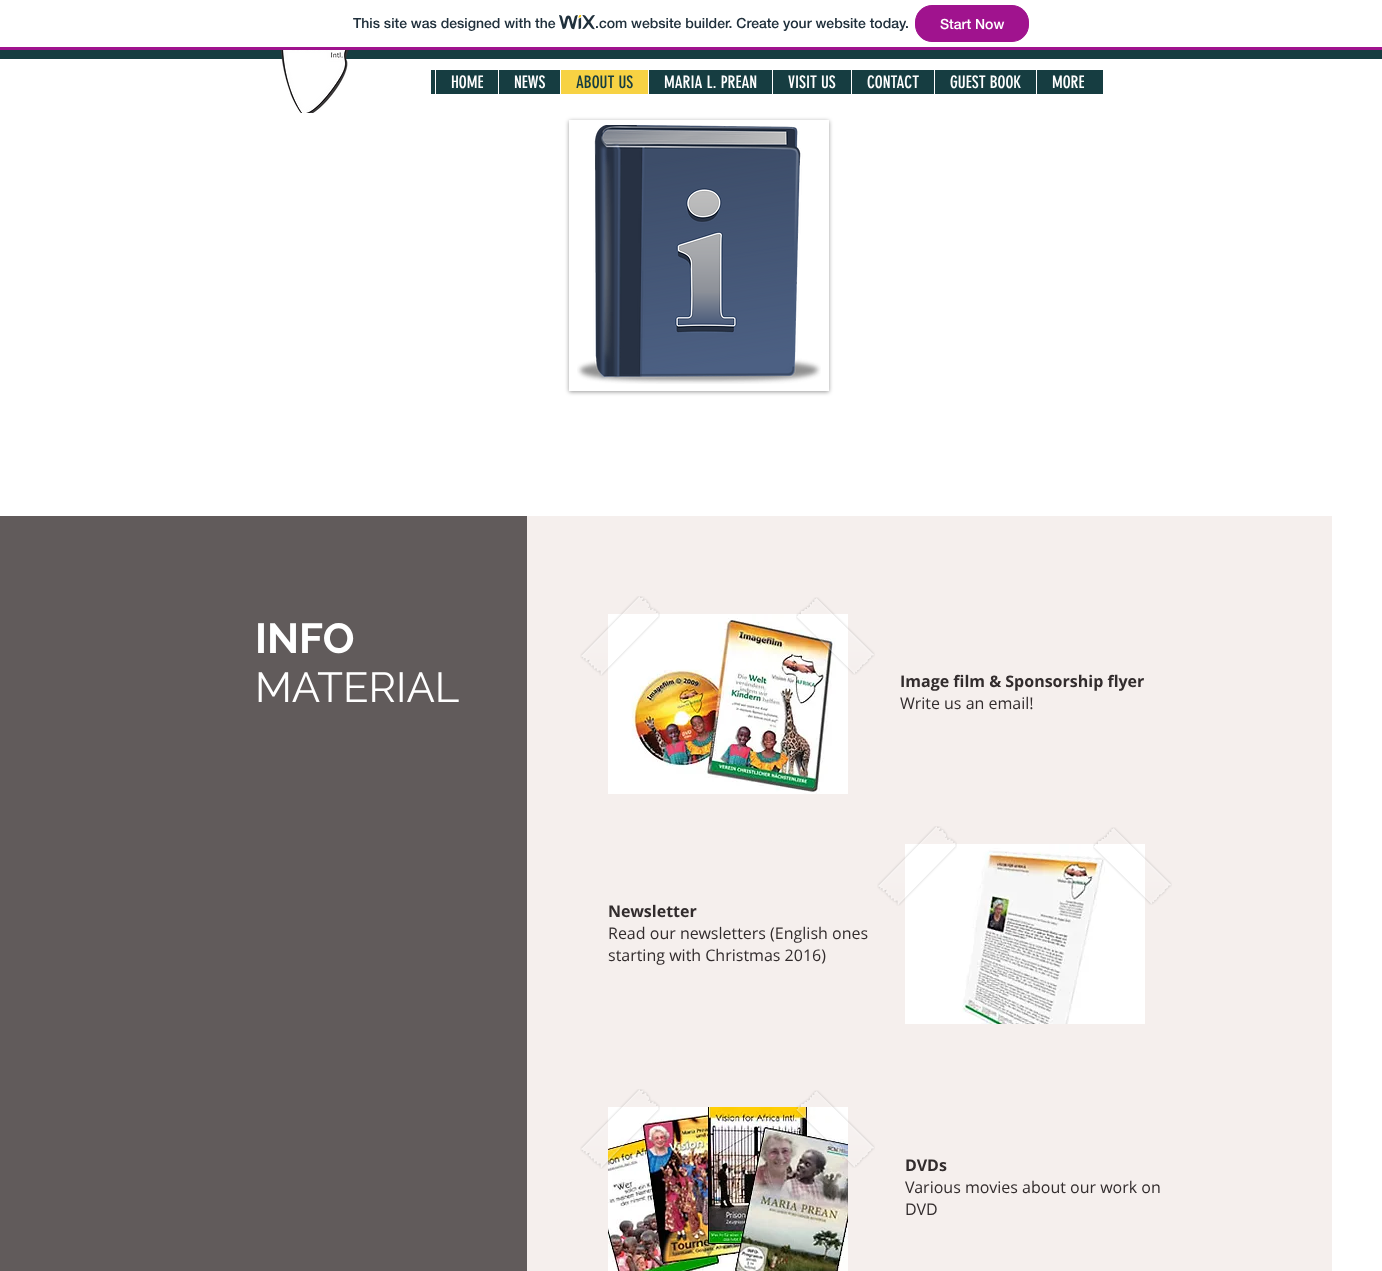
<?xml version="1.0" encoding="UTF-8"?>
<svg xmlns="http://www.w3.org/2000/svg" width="1382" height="1271">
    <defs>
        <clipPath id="clip1"><path d="M 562 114 H 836 V 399 H 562 Z M 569 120 H 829 V 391 H 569 Z" clip-rule="evenodd"/></clipPath>
        <filter id="blur1" x="-50%" y="-200%" width="200%" height="500%"><feGaussianBlur stdDeviation="2"/></filter>
    </defs>
    <rect width="100%" height="100%" fill="#FFFFFF"/>
    <rect x="0" y="47" width="1382" height="3" fill="#A0138E"/>
    <text x="353" y="28" font-family="'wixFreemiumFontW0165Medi'" font-size="14" font-weight="500" fill="#20303C">This site was designed with the</text>
    <image x="559" y="15" width="36" height="15" href="img_01.png"/>
    <text x="595" y="28" font-family="'wixFreemiumFontW0165Medi'" font-size="14" font-weight="500" fill="#20303C">.com website builder. Create your website today.</text>
    <rect x="915.5" y="5.5" width="113" height="36" rx="16.5" fill="#A0138E" stroke="#A0138E"/>
    <text x="940" y="29" font-family="'wixFreemiumFontW0165Medi'" font-size="14" font-weight="500" fill="#FFFFFF">Start Now</text>
    <rect x="0" y="50" width="1382" height="9" fill="#163D41"/>
    <image x="280" y="50" width="69" height="63" href="img_02.png"/>
    <rect x="431" y="70" width="672" height="24" fill="#163D41"/>
    <rect x="435" y="70" width="1" height="24" fill="#FFFFFF"/>
    <text x="451" y="88" font-family="'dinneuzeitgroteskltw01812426'" font-size="17" fill="#FFFFFF">HOME</text>
    <rect x="498" y="70" width="1" height="24" fill="#FFFFFF"/>
    <text x="514" y="88" font-family="'dinneuzeitgroteskltw01812426'" font-size="17" fill="#FFFFFF">NEWS</text>
    <rect x="561" y="70" width="87" height="24" fill="#F7D243"/>
    <rect x="560" y="70" width="1" height="24" fill="#FFFFFF"/>
    <text x="576" y="88" font-family="'dinneuzeitgroteskltw01812426'" font-size="17" fill="#163D41">ABOUT US</text>
    <rect x="648" y="70" width="1" height="24" fill="#FFFFFF"/>
    <text x="664" y="88" font-family="'dinneuzeitgroteskltw01812426'" font-size="17" fill="#FFFFFF">MARIA L. PREAN</text>
    <rect x="772" y="70" width="1" height="24" fill="#FFFFFF"/>
    <text x="788" y="88" font-family="'dinneuzeitgroteskltw01812426'" font-size="17" fill="#FFFFFF">VISIT US</text>
    <rect x="851" y="70" width="1" height="24" fill="#FFFFFF"/>
    <text x="867" y="88" font-family="'dinneuzeitgroteskltw01812426'" font-size="17" fill="#FFFFFF">CONTACT</text>
    <rect x="934" y="70" width="1" height="24" fill="#FFFFFF"/>
    <text x="950" y="88" font-family="'dinneuzeitgroteskltw01812426'" font-size="17" fill="#FFFFFF">GUEST BOOK</text>
    <rect x="1036" y="70" width="1" height="24" fill="#FFFFFF"/>
    <text x="1052" y="88" font-family="'dinneuzeitgroteskltw01812426'" font-size="17" fill="#FFFFFF">MORE</text>
    <g clip-path="url(#clip1)">
        <rect x="569" y="121" width="260" height="271" fill="#000000" fill-opacity="0.4" filter="url(#blur1)"/>
    </g>
    <image x="577" y="125" width="244" height="259" href="img_03.png"/>
    <rect x="527" y="516" width="805" height="755" fill="#F5EFED"/>
    <rect x="0" y="516" width="527" height="755" fill="#615B5B"/>
    <image x="608" y="614" width="240" height="180" href="img_06.png"/>
    <image x="580" y="596" width="80" height="80" href="img_04.png"/>
    <image x="796" y="597" width="79" height="78" href="img_05.png"/>
    <text x="255" y="653" font-family="Raleway" font-size="42" font-weight="700" fill="#FFFFFF">INFO</text>
    <text x="255" y="702" font-family="Raleway" font-size="42" fill="#FFFFFF">MATERIAL</text>
    <text x="900" y="687" font-family="Open Sans" font-size="16" font-weight="700" fill="#322C2D">Image film &amp; Sponsorship flyer</text>
    <text x="900" y="709" font-family="Open Sans" font-size="16" fill="#322C2D">Write us an email!</text>
    <text x="608" y="917" font-family="Open Sans" font-size="16" font-weight="700" fill="#322C2D">Newsletter</text>
    <text font-family="Open Sans" font-size="16" fill="#322C2D">
        <tspan x="608" y="939">Read our newsletters (English ones</tspan>
        <tspan x="608" y="961">starting with Christmas 2016)</tspan>
    </text>
    <image x="905" y="844" width="240" height="180" href="img_09.png"/>
    <image x="877" y="826" width="80" height="80" href="img_07.png"/>
    <image x="1093" y="827" width="79" height="78" href="img_08.png"/>
    <image x="608" y="1107" width="240" height="164" href="img_12.png"/>
    <image x="580" y="1089" width="80" height="80" href="img_10.png"/>
    <image x="796" y="1090" width="79" height="78" href="img_11.png"/>
    <text x="905" y="1171" font-family="Open Sans" font-size="16" font-weight="700" fill="#322C2D">DVDs</text>
    <text font-family="Open Sans" font-size="16" fill="#322C2D">
        <tspan x="905" y="1193">Various movies about our work on</tspan>
        <tspan x="905" y="1215">DVD</tspan>
    </text>
</svg>
